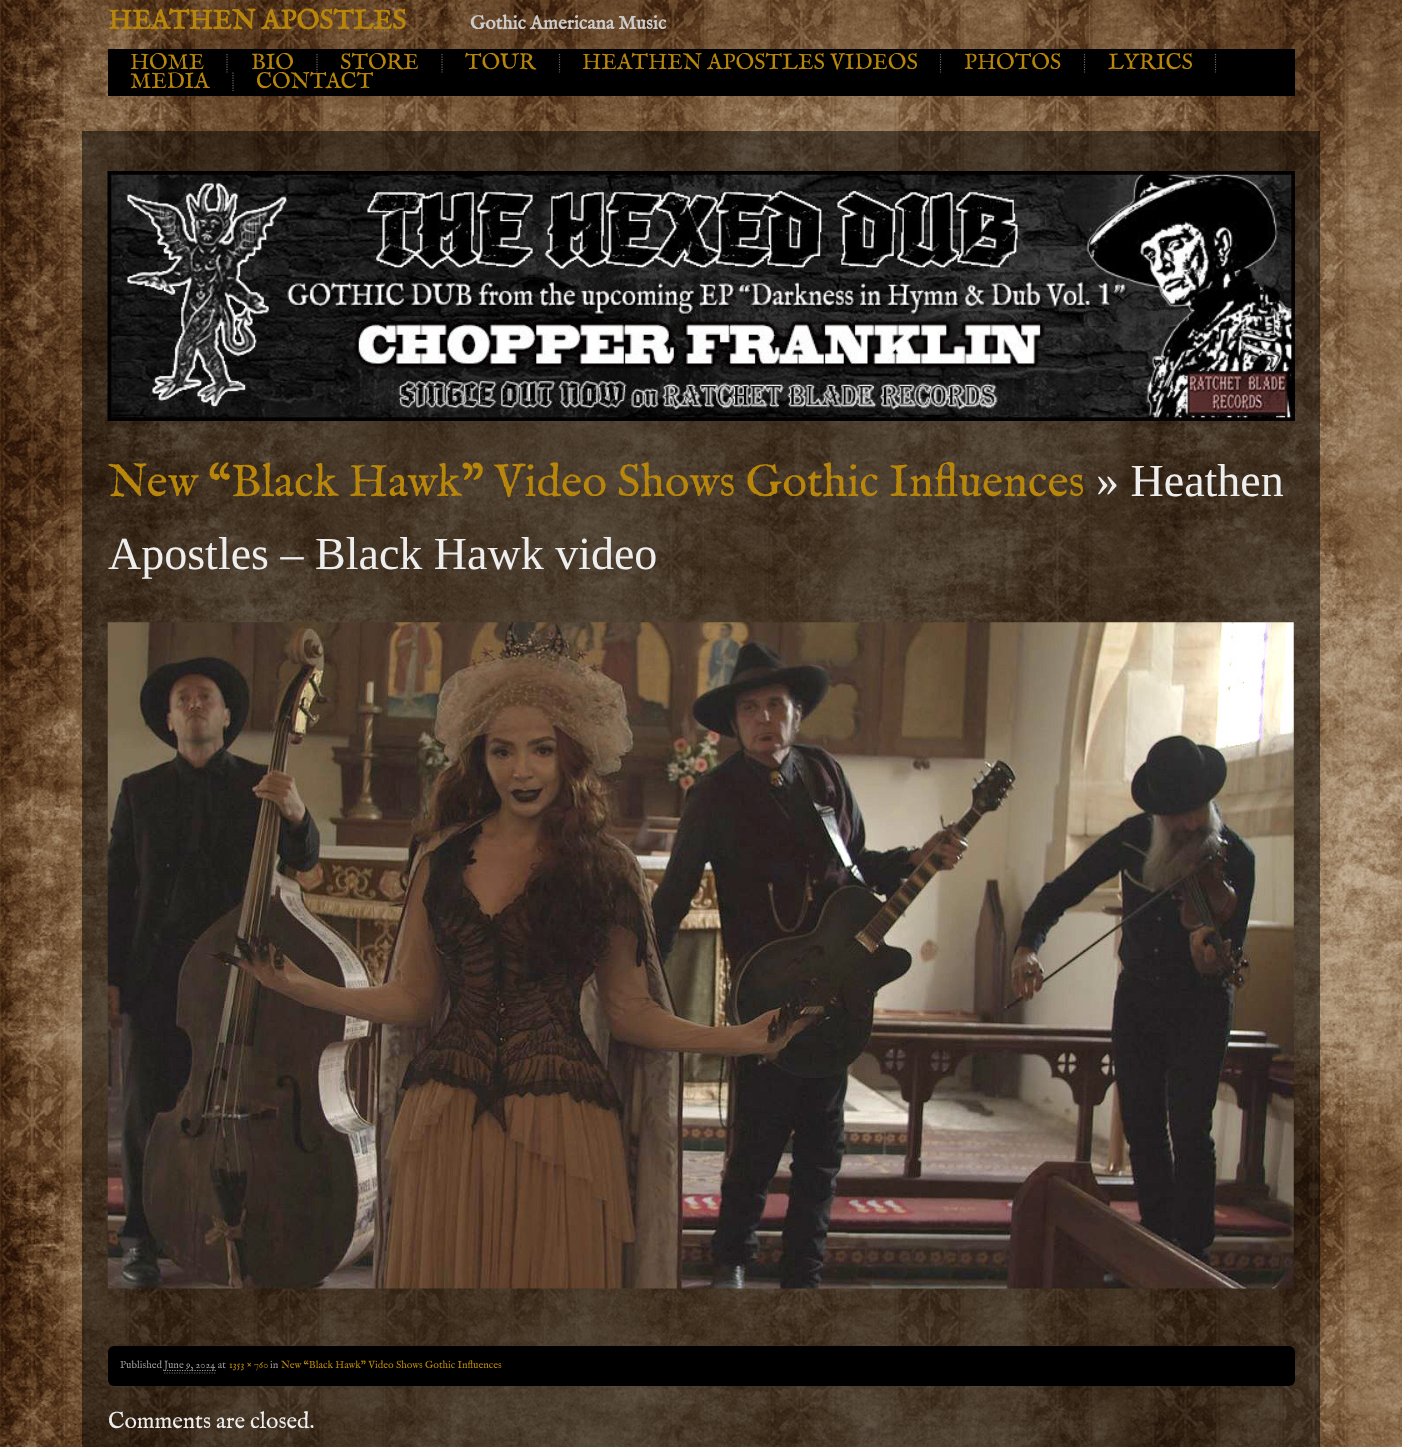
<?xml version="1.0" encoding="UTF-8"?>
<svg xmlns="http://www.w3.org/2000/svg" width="1402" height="1447">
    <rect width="100%" height="100%" fill="#FFFFFF"/>
    <image x="0" y="0" width="1402" height="1447" href="img_01.png"/>
    <text x="108" y="29" font-family="IM FELL English" font-size="27.6" font-weight="700" fill="#B8860B">HEATHEN APOSTLES</text>
    <text x="470" y="29" font-family="IM FELL English" font-size="19.25" font-weight="700" fill="#CCCCCC">Gothic Americana Music</text>
    <rect x="108" y="49" width="1187" height="47" fill="#000000"/>
    <path d="M 227 54 V 72.5" fill="none" stroke="#666666" stroke-width="1.2" stroke-dasharray="1.25 1.25"/>
    <text x="130" y="69" font-family="IM FELL English" font-size="22.5" fill="#B8860B">HOME</text>
    <path d="M 317 54 V 72.5" fill="none" stroke="#666666" stroke-width="1.2" stroke-dasharray="1.25 1.25"/>
    <text x="251" y="69" font-family="IM FELL English" font-size="22.5" fill="#B8860B">BIO</text>
    <path d="M 442 54 V 72.5" fill="none" stroke="#666666" stroke-width="1.2" stroke-dasharray="1.25 1.25"/>
    <text x="340" y="69" font-family="IM FELL English" font-size="22.5" fill="#B8860B">STORE</text>
    <path d="M 559.5 54 V 72.5" fill="none" stroke="#666666" stroke-width="1.2" stroke-dasharray="1.25 1.25"/>
    <text x="465" y="69" font-family="IM FELL English" font-size="22.5" fill="#B8860B">TOUR</text>
    <path d="M 940.5 54 V 72.5" fill="none" stroke="#666666" stroke-width="1.2" stroke-dasharray="1.25 1.25"/>
    <text x="582" y="69" font-family="IM FELL English" font-size="22.5" fill="#B8860B">HEATHEN APOSTLES VIDEOS</text>
    <path d="M 1084.5 54 V 72.5" fill="none" stroke="#666666" stroke-width="1.2" stroke-dasharray="1.25 1.25"/>
    <text x="964" y="69" font-family="IM FELL English" font-size="22.5" fill="#B8860B">PHOTOS</text>
    <path d="M 1215.5 54 V 72.5" fill="none" stroke="#666666" stroke-width="1.2" stroke-dasharray="1.25 1.25"/>
    <text x="1108" y="69" font-family="IM FELL English" font-size="22.5" fill="#B8860B">LYRICS</text>
    <path d="M 233 72.5 V 91" fill="none" stroke="#666666" stroke-width="1.2" stroke-dasharray="1.25 1.25"/>
    <text x="130" y="88" font-family="IM FELL English" font-size="22.5" fill="#B8860B">MEDIA</text>
    <text x="256" y="88" font-family="IM FELL English" font-size="22.5" fill="#B8860B">CONTACT</text>
    <rect x="82" y="131" width="1238" height="1316" fill="#000000" fill-opacity="0.5"/>
    <image x="107" y="171" width="1188" height="250" href="img_02.png"/>
    <text x="108" y="496" font-family="IM FELL English" font-size="46" fill="#B8860B">New “Black Hawk” Video Shows Gothic Influences</text>
    <text x="1096" y="496" font-family="Liberation Serif" font-size="46" fill="#EEEEEE">» Heathen</text>
    <text x="108" y="569" font-family="Liberation Serif" font-size="46" fill="#EEEEEE">Apostles – Black Hawk video</text>
    <image x="107" y="622" width="1187" height="667" href="img_03.png"/>
    <rect x="108" y="1346" width="1187" height="40" rx="6" fill="#000000"/>
    <text x="120" y="1368" font-family="IM FELL English" font-size="10.4" fill="#999999">Published</text>
    <path d="M 164.5 1370.5 H 216" fill="none" stroke="#999999" stroke-width="1.2" stroke-dasharray="1.25 1.25"/>
    <text x="164" y="1368" font-family="IM FELL English" font-size="10.4" fill="#999999">June 9, 2024 at</text>
    <path d="M 164 1373 H 216" fill="none" stroke="#666666" stroke-width="1.2" stroke-dasharray="1.25 1.25"/>
    <text x="229" y="1368" font-family="IM FELL English" font-size="10.4" fill="#B8860B">1353 × 760</text>
    <text x="270" y="1368" font-family="IM FELL English" font-size="10.4" fill="#999999">in</text>
    <text x="281" y="1368" font-family="IM FELL English" font-size="10.4" fill="#B8860B">New “Black Hawk” Video Shows Gothic Influences</text>
    <text x="108" y="1428" font-family="IM FELL English" font-size="23" fill="#EEEEEE">Comments are closed.</text>
</svg>
